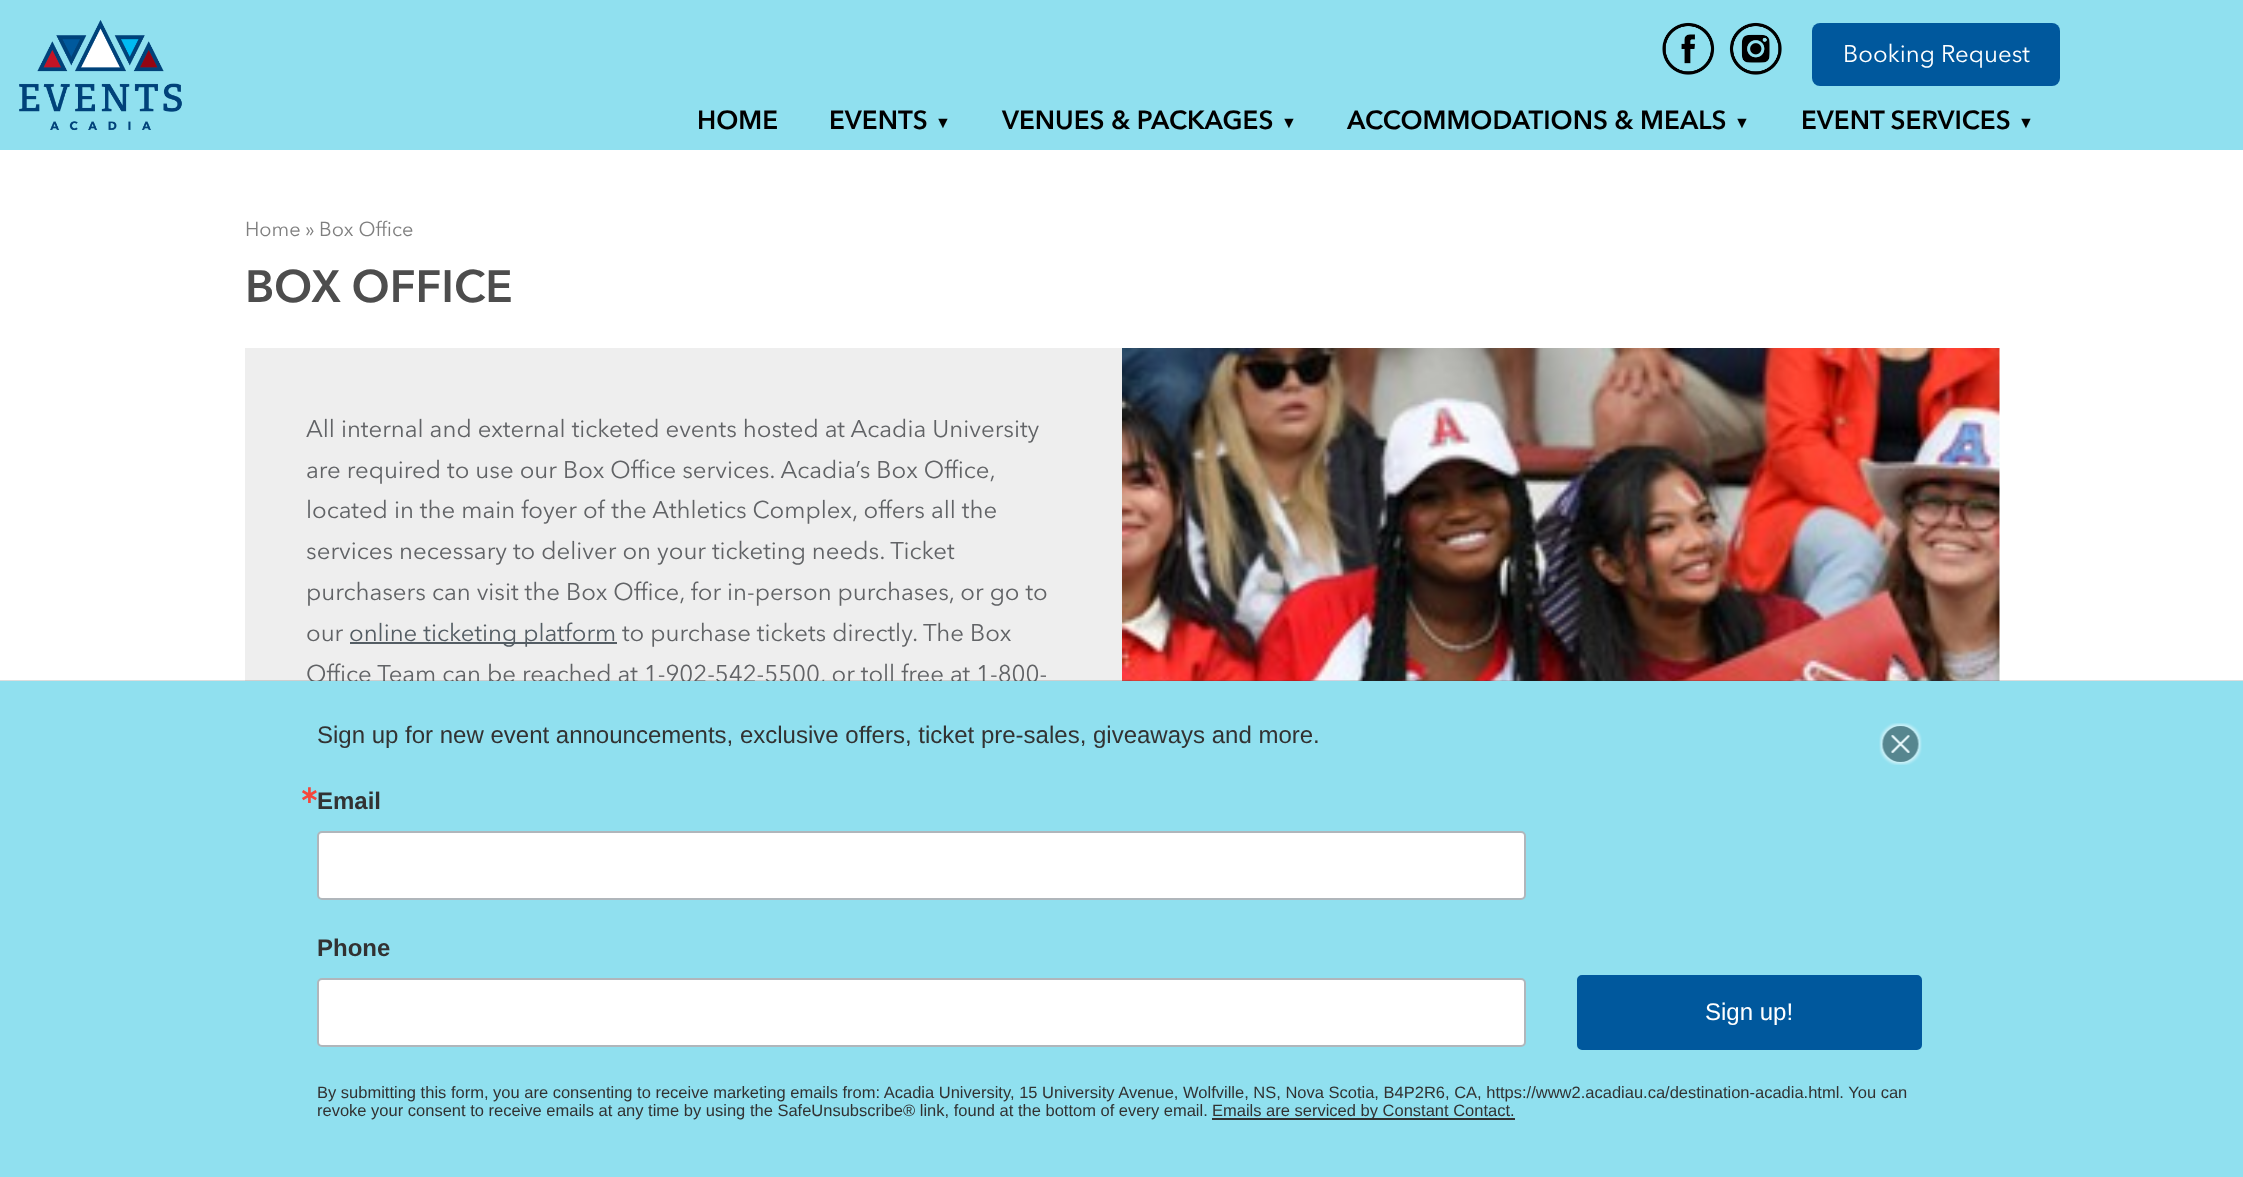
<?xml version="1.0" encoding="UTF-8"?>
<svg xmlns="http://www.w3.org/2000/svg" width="2243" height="1177">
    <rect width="100%" height="100%" fill="#FFFFFF"/>
    <rect x="0" y="0" width="2243" height="150" fill="#90E0EF"/>
    <image x="19" y="20" width="163" height="111" href="img_01.png"/>
    <image x="1662" y="22" width="53" height="53" href="img_02.png"/>
    <image x="1729" y="22" width="53" height="53" href="img_03.png"/>
    <rect x="1812" y="23" width="248" height="63" rx="8" fill="#00589D"/>
    <text x="1843" y="62" font-family="Avenir Next" font-size="24" fill="#FFFFFF">Booking Request</text>
    <text x="697" y="129" font-family="Avenir Next" font-size="26" font-weight="600" fill="#000000">HOME</text>
    <text x="829" y="129" font-family="Avenir Next" font-size="26" font-weight="600" fill="#000000">EVENTS</text>
    <text x="935" y="128" font-family="Liberation Serif" font-size="16" fill="#000000">▼</text>
    <text x="1002" y="129" font-family="Avenir Next" font-size="26" font-weight="600" fill="#000000">VENUES &amp; PACKAGES</text>
    <text x="1281" y="128" font-family="Liberation Serif" font-size="16" fill="#000000">▼</text>
    <text x="1347" y="129" font-family="Avenir Next" font-size="26" font-weight="600" fill="#000000">ACCOMMODATIONS &amp; MEALS</text>
    <text x="1734" y="128" font-family="Liberation Serif" font-size="16" fill="#000000">▼</text>
    <text x="1801" y="129" font-family="Avenir Next" font-size="26" font-weight="600" fill="#000000">EVENT SERVICES</text>
    <text x="2018" y="128" font-family="Liberation Serif" font-size="16" fill="#000000">▼</text>
    <text x="245" y="236" font-family="Avenir Next" font-size="20" fill="#7F7F7F">Home</text>
    <text x="305" y="236" font-family="Avenir Next" font-size="20" fill="#7F7F7F">» Box Office</text>
    <text x="245" y="302" font-family="Avenir Next" font-size="45" font-weight="600" fill="#4D4D4D">BOX OFFICE</text>
    <rect x="245" y="348" width="877" height="333" fill="#EEEEEE"/>
    <text font-family="Avenir Next" font-size="24" fill="#616366">
        <tspan x="306" y="437">All internal and external ticketed events hosted at Acadia University</tspan>
        <tspan x="306" y="478">are required to use our Box Office services. Acadia’s Box Office,</tspan>
        <tspan x="306" y="518">located in the main foyer of the Athletics Complex, offers all the</tspan>
        <tspan x="306" y="559">services necessary to deliver on your ticketing needs. Ticket</tspan>
        <tspan x="306" y="600">purchasers can visit the Box Office, for in-person purchases, or go to</tspan>
        <tspan x="306" y="641">our</tspan>
    </text>
    <rect x="350" y="642" width="267" height="2" fill="#545D64"/>
    <text x="349" y="641" font-family="Avenir Next" font-size="24" fill="#545D64">online ticketing platform</text>
    <text x="622" y="641" font-family="Avenir Next" font-size="24" fill="#616366">to purchase tickets directly. The Box</text>
    <text x="306" y="682" font-family="Avenir Next" font-size="24" fill="#616366">Office Team can be reached at 1-902-542-5500, or toll free at 1-800-</text>
    <image x="1122" y="348" width="878" height="333" href="img_04.png"/>
    <rect x="0" y="680" width="2243" height="1" fill="#333333" fill-opacity="0.16"/>
    <rect x="0" y="681" width="2243" height="496" fill="#90E0EF"/>
    <image x="1879" y="723" width="43" height="42" href="img_05.png"/>
    <text x="317" y="743" font-family="Liberation Sans" font-size="24" fill="#323232">Sign up for new event announcements, exclusive offers, ticket pre-sales, giveaways and more.</text>
    <text x="299" y="803" font-family="DejaVu Sans" font-size="24" font-weight="700" fill="#F5463B">∗</text>
    <text x="317" y="809" font-family="Liberation Sans" font-size="24" font-weight="700" fill="#323232">Email</text>
    <rect x="318" y="832" width="1207" height="67" rx="4" fill="#FFFFFF" stroke="#B0B6BB" stroke-width="2"/>
    <text x="317" y="956" font-family="Liberation Sans" font-size="24" font-weight="700" fill="#323232">Phone</text>
    <rect x="318" y="979" width="1207" height="67" rx="4" fill="#FFFFFF" stroke="#B0B6BB" stroke-width="2"/>
    <rect x="1578" y="976" width="343" height="73" rx="4" fill="#00589D" stroke="#00589D" stroke-width="2"/>
    <text x="1705" y="1020" font-family="Liberation Sans" font-size="24" fill="#FFFFFF">Sign up!</text>
    <text font-family="Liberation Sans" font-size="16.5" fill="#323232">
        <tspan x="317" y="1098">By submitting this form, you are consenting to receive marketing emails from: Acadia University, 15 University Avenue, Wolfville, NS, Nova Scotia, B4P2R6, CA, https://www2.acadiau.ca/destination-acadia.html. You can</tspan>
        <tspan x="317" y="1116">revoke your consent to receive emails at any time by using the SafeUnsubscribe® link, found at the bottom of every email.</tspan>
    </text>
    <rect x="1212" y="1118" width="303" height="2" fill="#323232"/>
    <text x="1212" y="1116" font-family="Liberation Sans" font-size="16.5" fill="#323232">Emails are serviced by Constant Contact.</text>
</svg>
